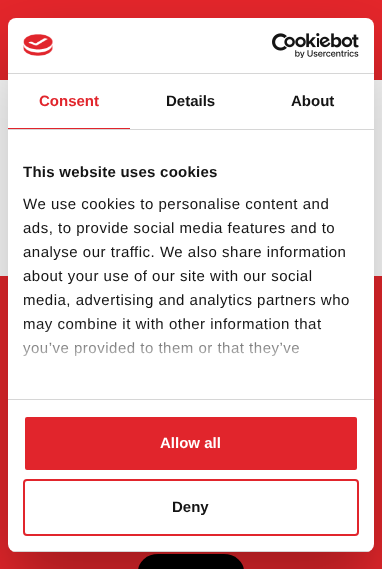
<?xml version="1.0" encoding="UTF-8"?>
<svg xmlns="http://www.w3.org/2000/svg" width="382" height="569">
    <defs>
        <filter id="blur1" x="-50%" y="-200%" width="200%" height="500%"><feGaussianBlur stdDeviation="34"/></filter>
        <linearGradient id="g1" gradientUnits="userSpaceOnUse" x1="185" y1="399" x2="185" y2="324"><stop offset="0" stop-color="#FFFFFF"/><stop offset="0.5" stop-color="#FFFFFF" stop-opacity="0.8"/><stop offset="1" stop-color="#FFFFFF" stop-opacity="0"/></linearGradient>
        <clipPath id="clip1"><rect x="8" y="18" width="366" height="534" rx="8"/></clipPath>
    </defs>
    <rect width="100%" height="100%" fill="#FFFFFF"/>
    <rect x="0" y="0" width="382" height="80" fill="#E5262B"/>
    <rect x="0" y="276" width="382" height="293" fill="#E5262B"/>
    <rect x="138" y="554" width="106" height="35" rx="20" fill="#000000"/>
    <rect x="8" y="50" width="366" height="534" rx="8" fill="#000000" fill-opacity="0.3" filter="url(#blur1)"/>
    <rect x="8" y="18" width="366" height="534" rx="8" fill="#FFFFFF"/>
    <rect x="8" y="73" width="366" height="1" fill="#D6D6D6"/>
    <image x="23" y="34" width="30" height="22" href="img_01.png"/>
    <image x="272" y="33" width="87" height="25" href="img_02.png"/>
    <rect x="8" y="129" width="366" height="1" fill="#D6D6D6"/>
    <rect x="8" y="128" width="122" height="1" fill="#E1252C"/>
    <text x="39" y="106" font-family="Liberation Sans" font-size="15" font-weight="700" fill="#E1252C">Consent</text>
    <text x="166" y="106" font-family="Liberation Sans" font-size="15" font-weight="700" fill="#141414">Details</text>
    <text x="291" y="106" font-family="Liberation Sans" font-size="15" font-weight="700" fill="#141414">About</text>
    <rect x="8" y="399" width="366" height="1" fill="#D6D6D6"/>
    <text x="23" y="177" font-family="Liberation Sans" font-size="15" font-weight="700" letter-spacing="0.25" fill="#141414">This website uses cookies</text>
    <text font-family="Liberation Sans" font-size="15" letter-spacing="0.5" fill="#141414">
        <tspan x="23" y="209">We use cookies to personalise content and</tspan>
        <tspan x="23" y="233">ads, to provide social media features and to</tspan>
        <tspan x="23" y="257">analyse our traffic. We also share information</tspan>
        <tspan x="23" y="281">about your use of our site with our social</tspan>
        <tspan x="23" y="305">media, advertising and analytics partners who</tspan>
        <tspan x="23" y="329">may combine it with other information that</tspan>
        <tspan x="23" y="353">you’ve provided to them or that they’ve</tspan>
    </text>
    <rect x="23" y="325" width="298" height="32" fill="url(#g1)"/>
    <g clip-path="url(#clip1)">
        <rect x="8" y="551" width="366" height="1" fill="#D6D6D6"/>
    </g>
    <rect x="24" y="416" width="334" height="55" rx="3" fill="#E1252C" stroke="#FFFFFF" stroke-width="2"/>
    <text x="160" y="448" font-family="Liberation Sans" font-size="15" font-weight="700" fill="#FFFFFF">Allow all</text>
    <rect x="24" y="480" width="334" height="55" rx="3" fill="none" stroke="#E1252C" stroke-width="2"/>
    <text x="172" y="512" font-family="Liberation Sans" font-size="15" font-weight="700" fill="#141414">Deny</text>
</svg>
